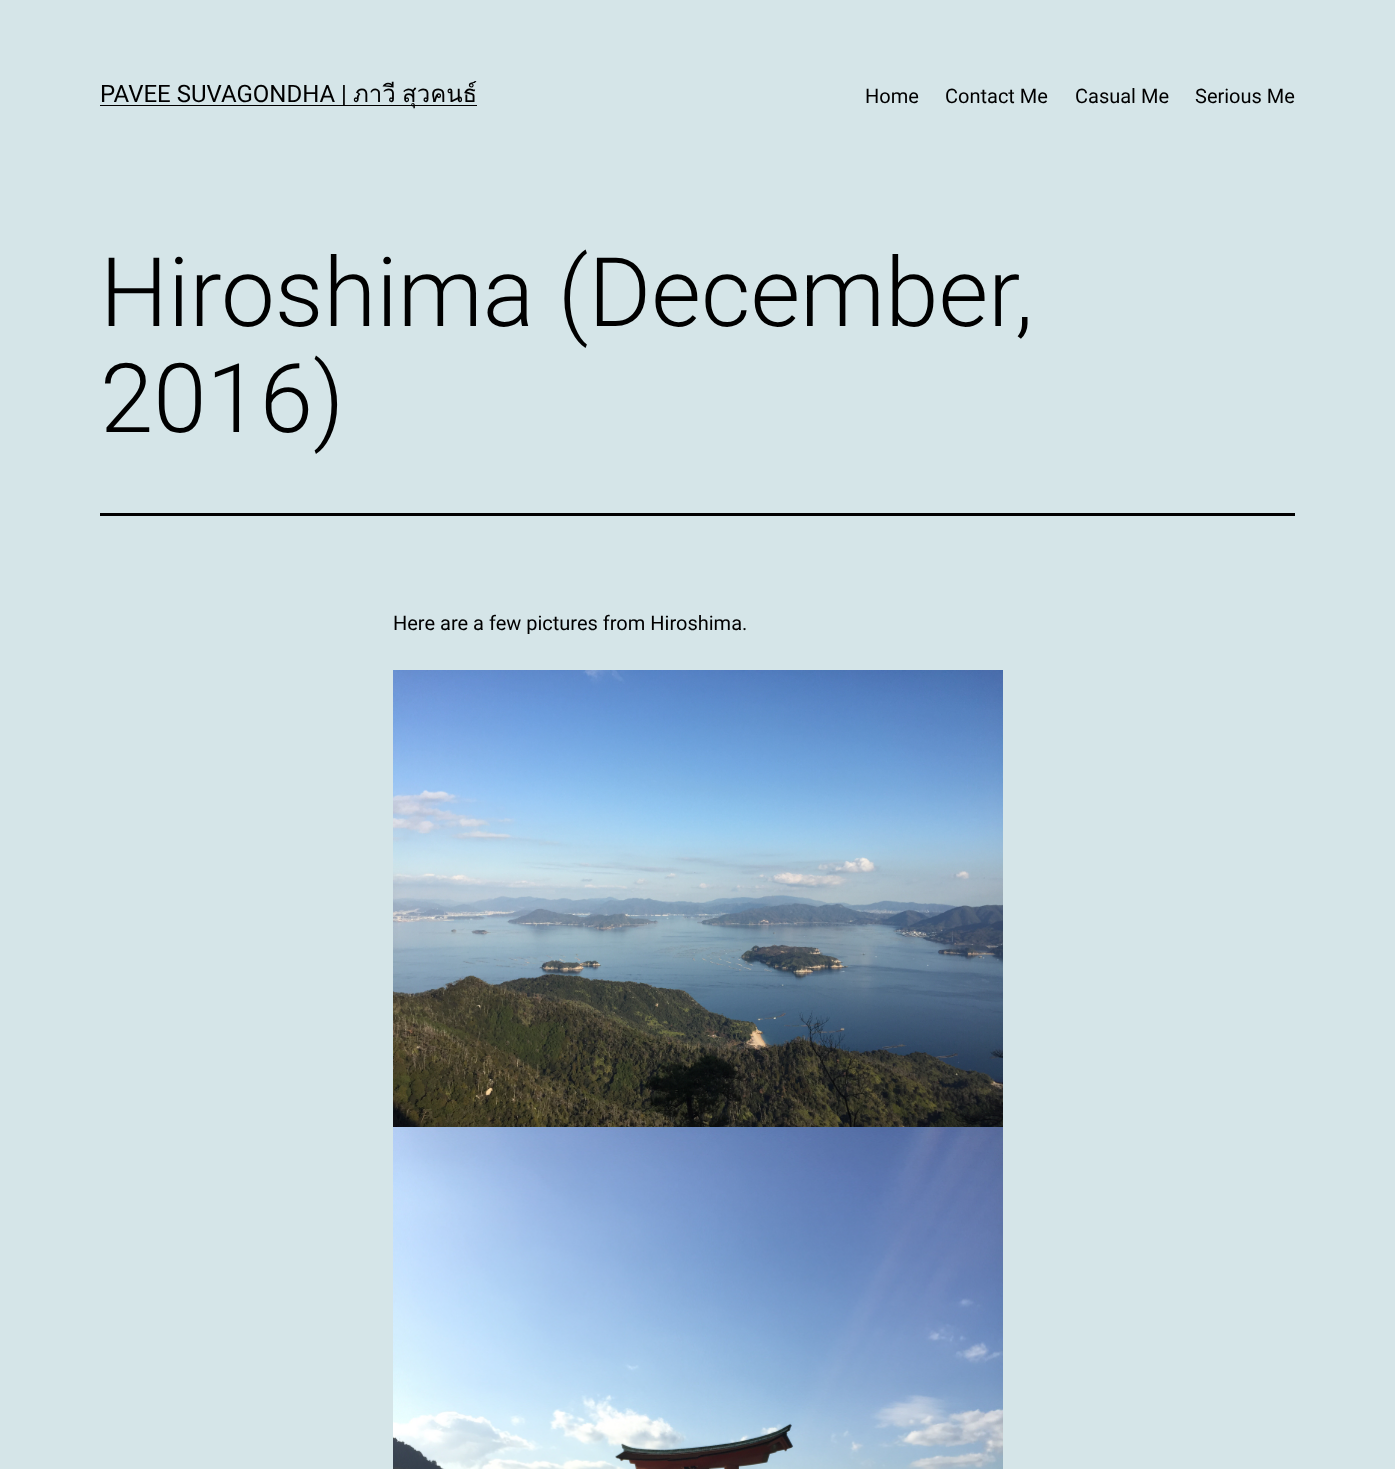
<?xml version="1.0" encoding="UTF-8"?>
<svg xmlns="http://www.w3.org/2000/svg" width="1395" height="1469">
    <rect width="100%" height="100%" fill="#D5E5E8"/>
    <rect x="100" y="105" width="377" height="1" fill="#000000"/>
    <text x="100" y="102" font-family="Roboto" font-size="24" fill="#000000">PAVEE SUVAGONDHA |</text>
    <text x="353" y="102" font-family="Loma" font-size="24" fill="#000000">ภาวี</text>
    <text x="402" y="102" font-family="Loma" font-size="24" fill="#000000">สุวคนธ์</text>
    <text x="865" y="103" font-family="Roboto" font-size="20" fill="#000000">Home</text>
    <text x="945" y="103" font-family="Roboto" font-size="20" fill="#000000">Contact Me</text>
    <text x="1075" y="103" font-family="Roboto" font-size="20" fill="#000000">Casual Me</text>
    <text x="1195" y="103" font-family="Roboto" font-size="20" fill="#000000">Serious Me</text>
    <rect x="100" y="513" width="1195" height="3" fill="#000000"/>
    <text font-family="Roboto" font-size="96" font-weight="300" fill="#000000">
        <tspan x="100" y="326">Hiroshima (December,</tspan>
        <tspan x="100" y="432">2016)</tspan>
    </text>
    <text x="393" y="630" font-family="Roboto" font-size="20" fill="#000000">Here are a few pictures from Hiroshima.</text>
    <image x="393" y="670" width="610" height="457" href="img_01.png"/>
    <image x="393" y="1127" width="610" height="342" href="img_02.png"/>
</svg>
